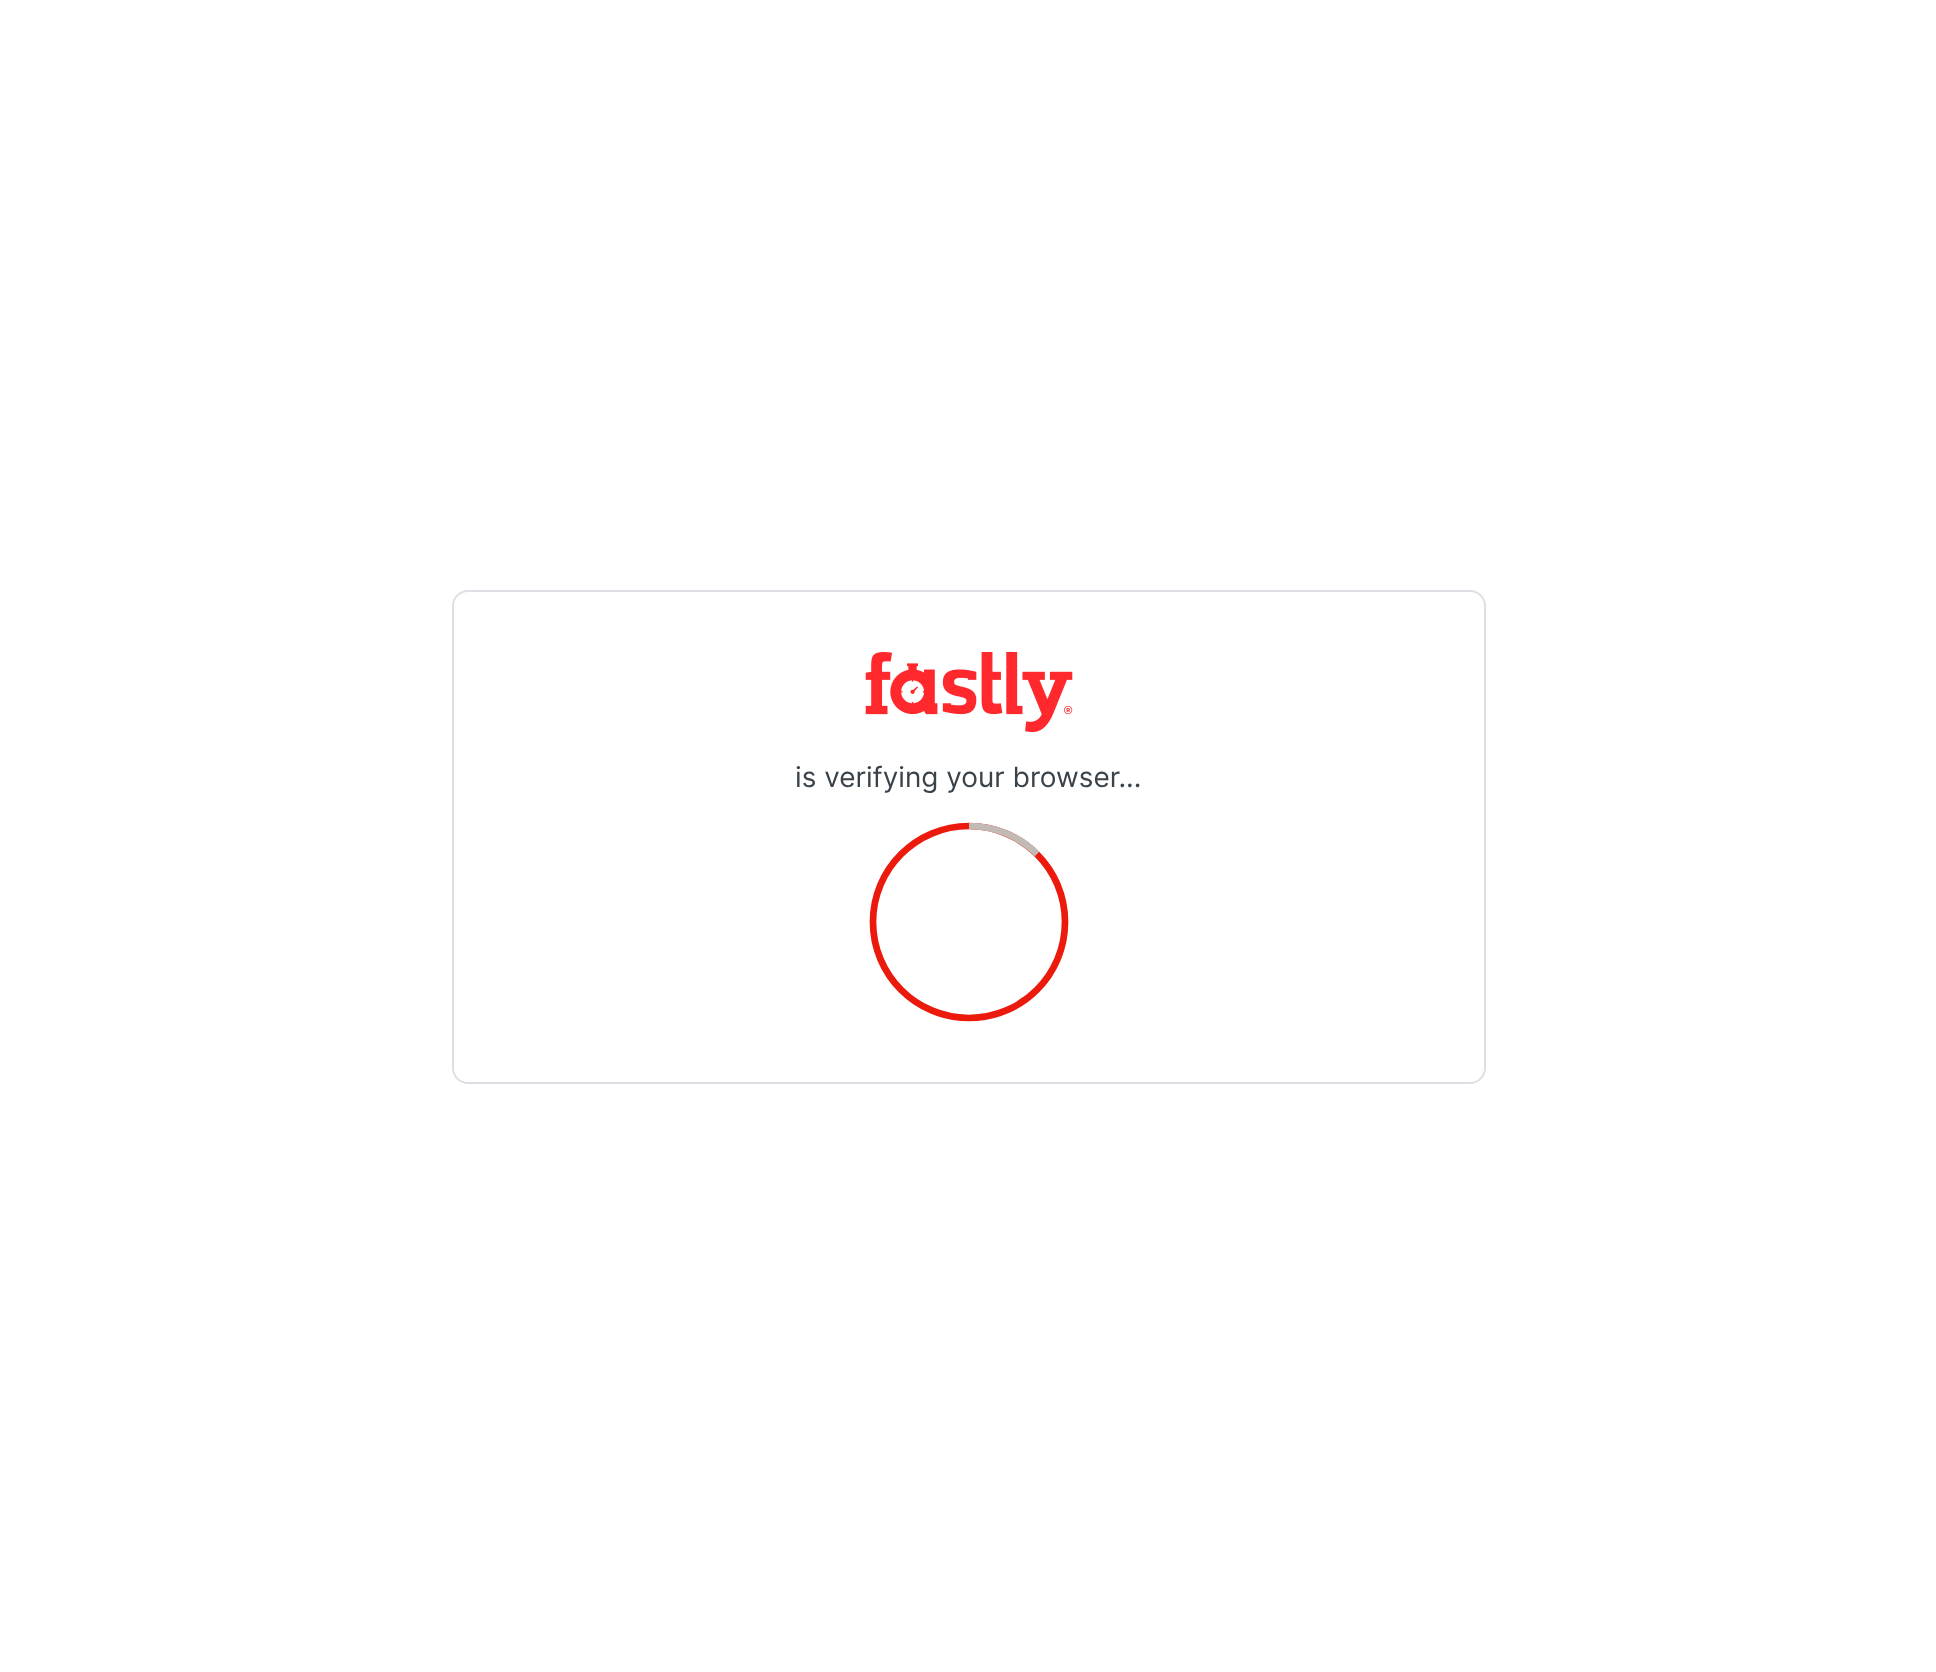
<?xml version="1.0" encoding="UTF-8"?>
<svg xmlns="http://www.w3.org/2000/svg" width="1936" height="1672">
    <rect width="100%" height="100%" fill="#FFFFFF"/>
    <rect x="453" y="591" width="1032" height="492" rx="15" fill="none" stroke="#DCE0E4" stroke-width="2"/>
    <image x="865" y="652" width="208" height="80" href="img_01.png"/>
    <text x="795" y="787" font-family="Inter" font-size="28" fill="#3A424A">is verifying your browser...</text>
    <path d="M 873 922 C 873 869 916 826 969 826 C 1022 826 1065 869 1065 922 C 1065 975 1022 1018 969 1018 C 916 1018 873 975 873 922 Z" fill="none" stroke="#EB1A0C" stroke-width="6.7"/>
    <path d="M 1037 854 C 1019 836 994.5 826 969 826" fill="none" stroke="#C2BAB5" stroke-width="6.7"/>
</svg>
